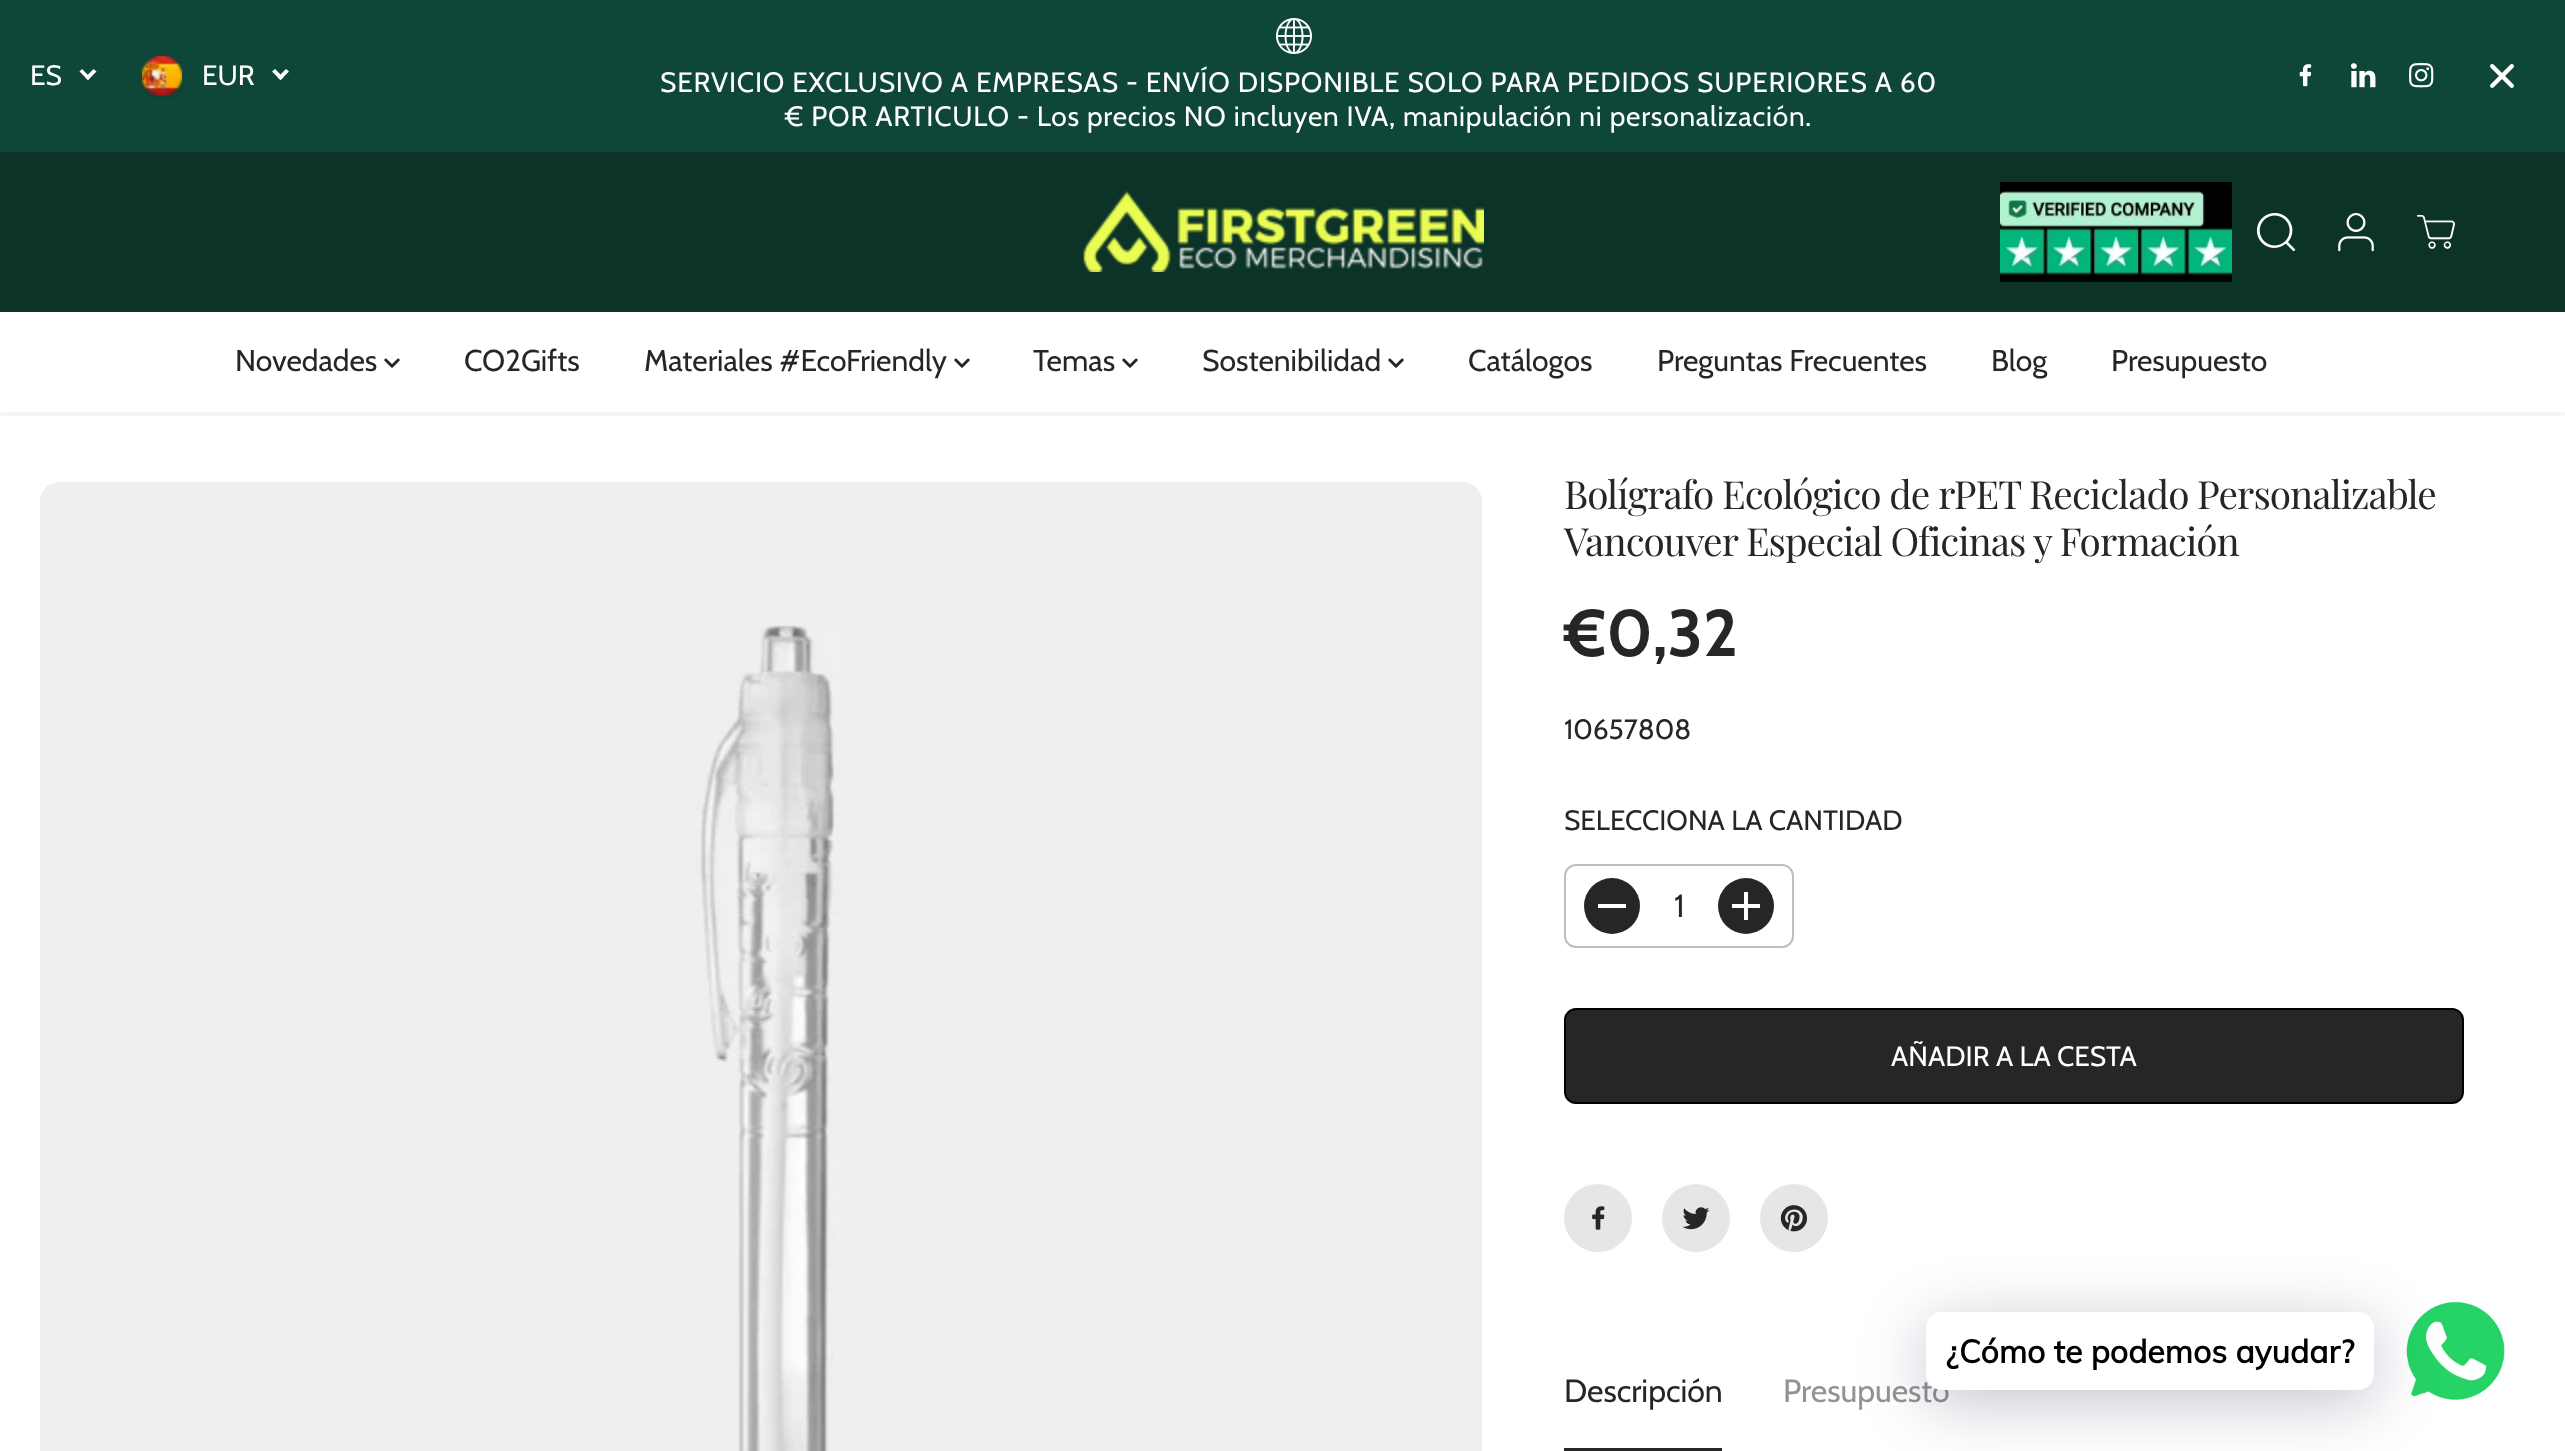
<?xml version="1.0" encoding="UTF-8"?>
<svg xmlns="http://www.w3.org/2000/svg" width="2565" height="1451">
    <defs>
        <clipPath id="clip1"><rect x="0" y="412" width="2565" height="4"/></clipPath>
        <filter id="blur1" x="-50%" y="-200%" width="200%" height="500%"><feGaussianBlur stdDeviation="2"/></filter>
        <filter id="blur2" x="-50%" y="-200%" width="200%" height="500%"><feGaussianBlur stdDeviation="32"/></filter>
    </defs>
    <rect width="100%" height="100%" fill="#FFFFFF"/>
    <rect x="0" y="152" width="2565" height="160" fill="#0C3328"/>
    <g clip-path="url(#clip1)">
        <rect x="0" y="156" width="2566" height="260" fill="#000000" fill-opacity="0.05" filter="url(#blur1)"/>
    </g>
    <rect x="0" y="0" width="2565" height="152" fill="#0E4738"/>
    <text x="30" y="85" font-family="Cabin" font-size="28" fill="#FFFFFF">ES</text>
    <path d="M 93.5 69 L 96.5 71.5 L 88 80 L 85 77.5 Z" fill="#FFFFFF"/>
    <path d="M 82 69 L 90.5 77.5 L 88 80 L 79.5 71.5 Z" fill="#FFFFFF"/>
    <image x="142" y="56" width="40" height="42" href="img_01.png"/>
    <text x="202" y="85" font-family="Cabin" font-size="28" fill="#FFFFFF">EUR</text>
    <path d="M 286 69 L 289 71.5 L 280.5 80 L 277.5 77.5 Z" fill="#FFFFFF"/>
    <path d="M 275 69 L 283.5 77.5 L 280.5 80 L 272 71.5 Z" fill="#FFFFFF"/>
    <image x="1276" y="18" width="36" height="36" href="img_02.png"/>
    <text x="660" y="92" font-family="Cabin" font-size="28" letter-spacing="0.8" fill="#FFFFFF">SERVICIO EXCLUSIVO A EMPRESAS - ENVÍO DISPONIBLE SOLO PARA PEDIDOS SUPERIORES A 60</text>
    <text x="785" y="126" font-family="Cabin" font-size="28" letter-spacing="0.8" fill="#FFFFFF">€ POR ARTICULO - Los precios NO incluyen IVA, manipulación ni personalización.</text>
    <image x="2299" y="64" width="13" height="23" href="img_03.png"/>
    <image x="2351" y="63" width="25" height="25" href="img_04.png"/>
    <image x="2409" y="63" width="25" height="25" href="img_05.png"/>
    <image x="2490" y="64" width="24" height="24" href="img_06.png"/>
    <image x="1083" y="191" width="401" height="81" href="img_07.png"/>
    <image x="2000" y="182" width="232" height="100" href="img_08.png"/>
    <image x="2256" y="213" width="40" height="39" href="img_09.png"/>
    <image x="2338" y="213" width="36" height="39" href="img_10.png"/>
    <image x="2416" y="214" width="39" height="35" href="img_11.png"/>
    <text x="235" y="371" font-family="Cabin" font-size="30" fill="#262626">Novedades</text>
    <image x="384" y="358" width="16" height="10" href="img_12.png"/>
    <text x="464" y="371" font-family="Cabin" font-size="30" fill="#262626">CO2Gifts</text>
    <text x="644" y="371" font-family="Cabin" font-size="30" fill="#262626">Materiales #EcoFriendly</text>
    <image x="954" y="358" width="16" height="10" href="img_12.png"/>
    <text x="1033" y="371" font-family="Cabin" font-size="30" fill="#262626">Temas</text>
    <image x="1122" y="358" width="16" height="10" href="img_12.png"/>
    <text x="1202" y="371" font-family="Cabin" font-size="30" fill="#262626">Sostenibilidad</text>
    <image x="1388" y="358" width="16" height="10" href="img_12.png"/>
    <text x="1468" y="371" font-family="Cabin" font-size="30" fill="#262626">Catálogos</text>
    <text x="1657" y="371" font-family="Cabin" font-size="30" fill="#262626">Preguntas Frecuentes</text>
    <text x="1991" y="371" font-family="Cabin" font-size="30" fill="#262626">Blog</text>
    <text x="2111" y="371" font-family="Cabin" font-size="30" fill="#262626">Presupuesto</text>
    <rect x="40" y="482" width="1442" height="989" rx="20" fill="#DDEDED"/>
    <image x="40" y="482" width="1442" height="969" href="img_13.png"/>
    <text font-family="Playfair Display" font-size="38.8" letter-spacing="-0.97" fill="#262626">
        <tspan x="1564" y="509">Bolígrafo Ecológico de rPET Reciclado Personalizable</tspan>
        <tspan x="1564" y="556">Vancouver Especial Oficinas y Formación</tspan>
    </text>
    <text x="1564" y="656" font-family="Cabin" font-size="66" font-weight="700" fill="#262626">€0,32</text>
    <text x="1564" y="739" font-family="Cabin" font-size="28" fill="#262626">10657808</text>
    <text x="1564" y="830" font-family="Cabin" font-size="28" fill="#262626">SELECCIONA LA CANTIDAD</text>
    <rect x="1565" y="865" width="228" height="82" rx="11" fill="none" stroke="#BEBEBE" stroke-width="2"/>
    <circle cx="1612" cy="906" r="28" fill="#262626"/>
    <rect x="1598" y="904" width="28" height="4" fill="#FFFFFF"/>
    <text x="1674" y="917" font-family="Cabin" font-size="32" fill="#262626">1</text>
    <circle cx="1746" cy="906" r="28" fill="#262626"/>
    <image x="1732" y="892" width="28" height="28" href="img_14.png"/>
    <rect x="1565" y="1009" width="898" height="94" rx="11" fill="#262626" stroke="#000000" stroke-width="2"/>
    <text x="1891" y="1066" font-family="Cabin" font-size="28" fill="#FFFFFF">AÑADIR A LA CESTA</text>
    <circle cx="1598" cy="1218" r="34" fill="#E6E6E6"/>
    <image x="1592" y="1206" width="13" height="24" href="img_15.png"/>
    <circle cx="1696" cy="1218" r="34" fill="#E6E6E6"/>
    <image x="1682" y="1207" width="28" height="23" href="img_16.png"/>
    <circle cx="1794" cy="1218" r="34" fill="#E6E6E6"/>
    <image x="1780" y="1205" width="28" height="27" href="img_17.png"/>
    <text x="1564" y="1402" font-family="Cabin" font-size="32" fill="#262626">Descripción</text>
    <rect x="1564" y="1448" width="158" height="3" fill="#262626"/>
    <text x="1783" y="1402" font-family="Cabin" font-size="32" fill="#939393">Presupuesto</text>
    <image x="2406" y="1301" width="99" height="99" href="img_18.png"/>
    <rect x="1926" y="1324" width="448" height="78" rx="16" fill="#00122E" fill-opacity="0.24" filter="url(#blur2)"/>
    <rect x="1926" y="1312" width="448" height="78" rx="16" fill="#FFFFFF"/>
    <text x="1946" y="1363" font-family="Muli" font-size="32" font-weight="700" fill="#000000">¿Cómo te podemos ayudar?</text>
</svg>
